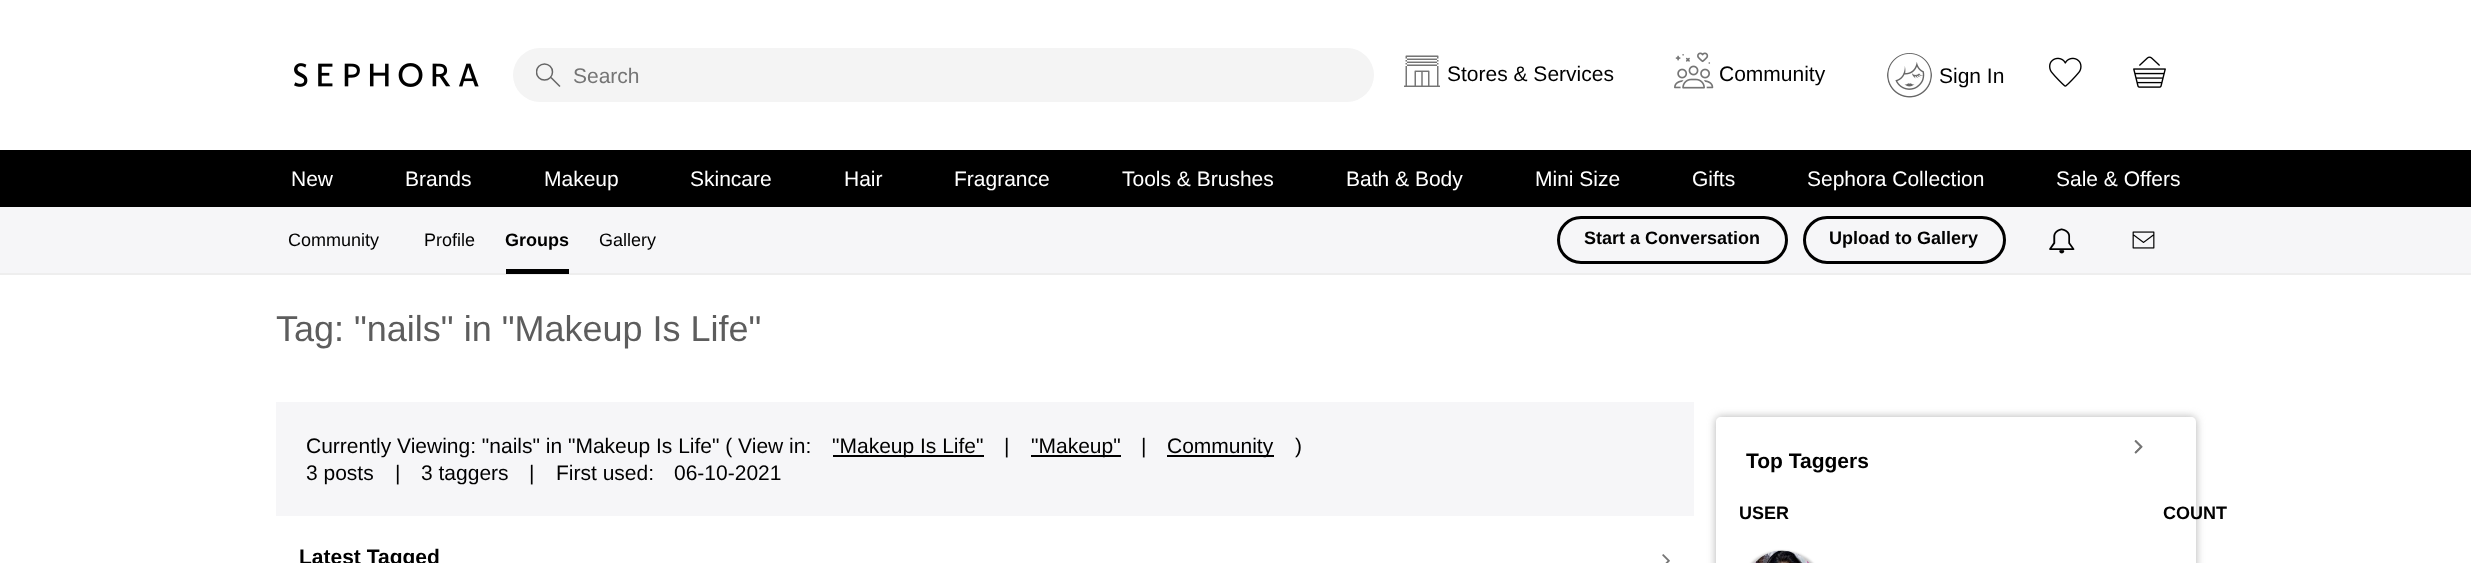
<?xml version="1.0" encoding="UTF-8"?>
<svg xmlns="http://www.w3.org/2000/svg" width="2471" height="563">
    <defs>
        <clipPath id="clip1"><rect x="536" y="63" width="24" height="24"/></clipPath>
        <clipPath id="clip2"><path d="M 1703 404 H 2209 V 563 H 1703 Z M 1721 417 H 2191 C 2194 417 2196 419 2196 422 V 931 C 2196 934 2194 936 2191 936 H 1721 C 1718 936 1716 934 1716 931 V 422 C 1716 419 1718 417 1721 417 Z" clip-rule="evenodd"/></clipPath>
        <filter id="blur1" x="-50%" y="-200%" width="200%" height="500%"><feGaussianBlur stdDeviation="4"/></filter>
        <filter id="blur2" x="-50%" y="-200%" width="200%" height="500%"><feGaussianBlur stdDeviation="1"/></filter>
    </defs>
    <rect width="100%" height="100%" fill="#FFFFFF"/>
    <image x="294" y="63" width="185" height="24" href="img_01.png"/>
    <rect x="513" y="48" width="861" height="54" rx="27" fill="#F4F4F4"/>
    <g clip-path="url(#clip1)">
        <circle cx="544.5" cy="72" r="8" fill="none" stroke="#666666" stroke-width="1.5"/>
    </g>
    <path d="M 551 77.5 L 560 86.5" fill="none" stroke="#666666" stroke-width="1.5"/>
    <text x="573" y="83" font-family="Liberation Sans" font-size="21" fill="#757575">Search</text>
    <image x="1404" y="55" width="36" height="32" href="img_02.png"/>
    <text x="1447" y="81" font-family="Liberation Sans" font-size="21" fill="#000000">Stores &amp; Services</text>
    <image x="1674" y="52" width="40" height="37" href="img_03.png"/>
    <text x="1719" y="81" font-family="Liberation Sans" font-size="21" fill="#000000">Community</text>
    <image x="1887" y="53" width="45" height="45" href="img_04.png"/>
    <text x="1939" y="83" font-family="Liberation Sans" font-size="21" fill="#000000">Sign In</text>
    <image x="2049" y="57" width="33" height="30" href="img_05.png"/>
    <image x="2133" y="56" width="33" height="32" href="img_06.png"/>
    <rect x="0" y="150" width="2471" height="57" fill="#000000"/>
    <text x="291" y="186" font-family="Liberation Sans" font-size="21" fill="#FFFFFF">New</text>
    <text x="405" y="186" font-family="Liberation Sans" font-size="21" fill="#FFFFFF">Brands</text>
    <text x="544" y="186" font-family="Liberation Sans" font-size="21" fill="#FFFFFF">Makeup</text>
    <text x="690" y="186" font-family="Liberation Sans" font-size="21" fill="#FFFFFF">Skincare</text>
    <text x="844" y="186" font-family="Liberation Sans" font-size="21" fill="#FFFFFF">Hair</text>
    <text x="954" y="186" font-family="Liberation Sans" font-size="21" fill="#FFFFFF">Fragrance</text>
    <text x="1122" y="186" font-family="Liberation Sans" font-size="21" fill="#FFFFFF">Tools &amp; Brushes</text>
    <text x="1346" y="186" font-family="Liberation Sans" font-size="21" fill="#FFFFFF">Bath &amp; Body</text>
    <text x="1535" y="186" font-family="Liberation Sans" font-size="21" fill="#FFFFFF">Mini Size</text>
    <text x="1692" y="186" font-family="Liberation Sans" font-size="21" fill="#FFFFFF">Gifts</text>
    <text x="1807" y="186" font-family="Liberation Sans" font-size="21" fill="#FFFFFF">Sephora Collection</text>
    <text x="2056" y="186" font-family="Liberation Sans" font-size="21" fill="#FFFFFF">Sale &amp; Offers</text>
    <rect x="0" y="273" width="2471" height="2" fill="#EEEEEE"/>
    <rect x="0" y="207" width="2471" height="66" fill="#F6F6F8"/>
    <text x="288" y="246" font-family="Liberation Sans" font-size="18" fill="#000000">Community</text>
    <text x="424" y="246" font-family="Liberation Sans" font-size="18" fill="#000000">Profile</text>
    <rect x="506" y="269" width="63" height="5" fill="#000000"/>
    <text x="505" y="246" font-family="Liberation Sans" font-size="18" font-weight="700" fill="#000000">Groups</text>
    <text x="599" y="246" font-family="Liberation Sans" font-size="18" fill="#000000">Gallery</text>
    <rect x="1558.5" y="217.5" width="228" height="45" rx="22.5" fill="none" stroke="#000000" stroke-width="3"/>
    <text x="1584" y="244" font-family="Liberation Sans" font-size="18" font-weight="700" fill="#000000">Start a Conversation</text>
    <rect x="1804.5" y="217.5" width="200" height="45" rx="22.5" fill="none" stroke="#000000" stroke-width="3"/>
    <text x="1829" y="244" font-family="Liberation Sans" font-size="18" font-weight="700" fill="#000000">Upload to Gallery</text>
    <image x="2049" y="228" width="26" height="26" href="img_07.png"/>
    <image x="2132" y="231" width="23" height="18" href="img_08.png"/>
    <text x="276" y="341" font-family="Liberation Sans" font-size="36" fill="#5D5D5D">Tag: "nails" in "Makeup Is Life"</text>
    <rect x="276" y="402" width="1418" height="114" fill="#F6F6F8"/>
    <text x="306" y="453" font-family="Liberation Sans" font-size="21" fill="#000000">Currently Viewing: "nails" in "Makeup Is Life" ( View in:</text>
    <rect x="833" y="455" width="151" height="2" fill="#000000"/>
    <text x="832" y="453" font-family="Liberation Sans" font-size="21" fill="#000000">"Makeup Is Life"</text>
    <text x="1004" y="453" font-family="Liberation Sans" font-size="21" fill="#000000">|</text>
    <rect x="1031" y="455" width="90" height="2" fill="#000000"/>
    <text x="1031" y="453" font-family="Liberation Sans" font-size="21" fill="#000000">"Makeup"</text>
    <text x="1141" y="453" font-family="Liberation Sans" font-size="21" fill="#000000">|</text>
    <rect x="1167" y="455" width="107" height="2" fill="#000000"/>
    <text x="1167" y="453" font-family="Liberation Sans" font-size="21" fill="#000000">Community</text>
    <text x="1295" y="453" font-family="Liberation Sans" font-size="21" fill="#000000">)</text>
    <text x="306" y="480" font-family="Liberation Sans" font-size="21" fill="#000000">3 posts</text>
    <text x="395" y="480" font-family="Liberation Sans" font-size="21" fill="#000000">|</text>
    <text x="421" y="480" font-family="Liberation Sans" font-size="21" fill="#000000">3 taggers</text>
    <text x="529" y="480" font-family="Liberation Sans" font-size="21" fill="#000000">|</text>
    <text x="556" y="480" font-family="Liberation Sans" font-size="21" fill="#000000">First used:</text>
    <text x="674" y="480" font-family="Liberation Sans" font-size="21" fill="#000000">06-10-2021</text>
    <text x="299" y="564" font-family="Liberation Sans" font-size="21" font-weight="700" fill="#000000">Latest Tagged</text>
    <image x="1662" y="554" width="8" height="9" href="img_09.png"/>
    <g clip-path="url(#clip2)">
        <rect x="1716" y="417" width="480" height="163" rx="5" fill="#B1B1B1" filter="url(#blur1)"/>
    </g>
    <text x="1746" y="468" font-family="Liberation Sans" font-size="21" font-weight="700" fill="#000000">Top Taggers</text>
    <image x="2134" y="440" width="9" height="14" href="img_10.png"/>
    <image x="2134" y="440" width="9" height="14" href="img_11.png"/>
    <text x="1739" y="519" font-family="Liberation Sans" font-size="18" font-weight="700" fill="#000000">USER</text>
    <text x="2163" y="519" font-family="Liberation Sans" font-size="18" font-weight="700" fill="#000000">COUNT</text>
    <rect x="1746" y="551" width="72" height="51" rx="36" fill="#C4C4C4" filter="url(#blur2)"/>
    <image x="1755" y="550" width="54" height="13" href="img_12.png"/>
</svg>
